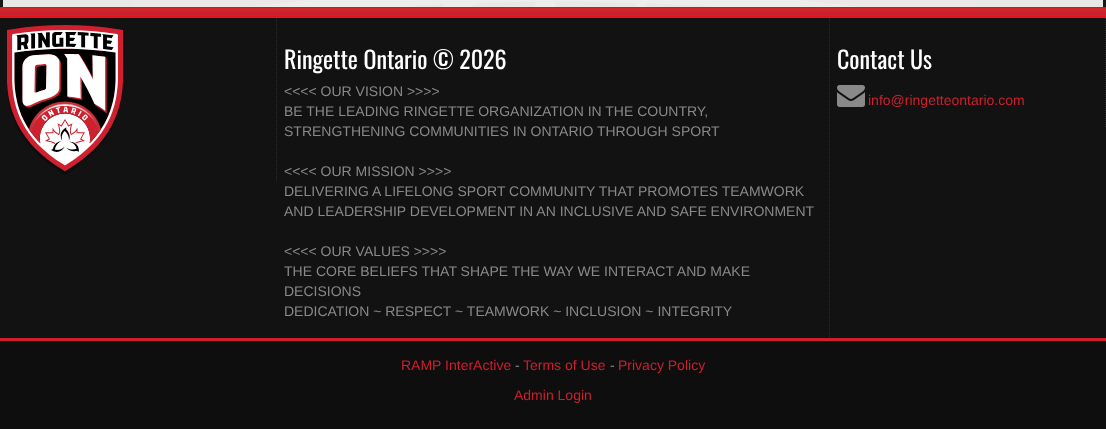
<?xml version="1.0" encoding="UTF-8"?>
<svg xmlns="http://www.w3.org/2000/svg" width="1106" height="429">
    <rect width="100%" height="100%" fill="#FFFFFF"/>
    <image x="0" y="0" width="1106" height="7" href="img_01.png"/>
    <rect x="3" y="0" width="1100" height="7" fill="#FFFFFF" fill-opacity="0.9"/>
    <rect x="0" y="7" width="1106" height="11" fill="#CE1F2E"/>
    <image x="0" y="7" width="1106" height="10" href="img_02.png"/>
    <rect x="0" y="18" width="1106" height="320" fill="#121212"/>
    <path d="M 276.5 18 V 182" fill="none" stroke="#2A2A2A" stroke-dasharray="1 1"/>
    <image x="7" y="25" width="116" height="150" href="img_03.png"/>
    <path d="M 829.5 18 V 338" fill="none" stroke="#2A2A2A" stroke-dasharray="1 1"/>
    <text x="284" y="69" font-family="Oswald" font-size="24" fill="#FFFFFF">Ringette Ontario © 2026</text>
    <text font-family="Liberation Sans" font-size="14" fill="#898989">
        <tspan x="284" y="96">&lt;&lt;&lt;&lt; OUR VISION &gt;&gt;&gt;&gt;</tspan>
        <tspan x="284" y="116">BE THE LEADING RINGETTE ORGANIZATION IN THE COUNTRY,</tspan>
        <tspan x="284" y="136">STRENGTHENING COMMUNITIES IN ONTARIO THROUGH SPORT</tspan>
    </text>
    <text font-family="Liberation Sans" font-size="14" fill="#898989">
        <tspan x="284" y="176">&lt;&lt;&lt;&lt; OUR MISSION &gt;&gt;&gt;&gt;</tspan>
        <tspan x="284" y="196">DELIVERING A LIFELONG SPORT COMMUNITY THAT PROMOTES TEAMWORK</tspan>
        <tspan x="284" y="216">AND LEADERSHIP DEVELOPMENT IN AN INCLUSIVE AND SAFE ENVIRONMENT</tspan>
    </text>
    <text font-family="Liberation Sans" font-size="14" fill="#898989">
        <tspan x="284" y="256">&lt;&lt;&lt;&lt; OUR VALUES &gt;&gt;&gt;&gt;</tspan>
        <tspan x="284" y="276">THE CORE BELIEFS THAT SHAPE THE WAY WE INTERACT AND MAKE</tspan>
        <tspan x="284" y="296">DECISIONS</tspan>
        <tspan x="284" y="316">DEDICATION ~ RESPECT ~ TEAMWORK ~ INCLUSION ~ INTEGRITY</tspan>
    </text>
    <path d="M 1105.5 18 V 127" fill="none" stroke="#2A2A2A" stroke-dasharray="1 1"/>
    <text x="837" y="69" font-family="Oswald" font-size="24" fill="#FFFFFF">Contact Us</text>
    <image x="837" y="85" width="28" height="22" href="img_04.png"/>
    <text x="868" y="105" font-family="Liberation Sans" font-size="14" fill="#CE1F2E">info@ringetteontario.com</text>
    <rect x="0" y="338" width="1106" height="3" fill="#CE1F2E"/>
    <rect x="0" y="341" width="1106" height="88" fill="#0E0E0E"/>
    <text x="401" y="370" font-family="Liberation Sans" font-size="14" fill="#CE1F2E">RAMP InterActive</text>
    <text x="515" y="370" font-family="Liberation Sans" font-size="14" fill="#898989">-</text>
    <text x="523" y="370" font-family="Liberation Sans" font-size="14" fill="#CE1F2E">Terms of Use</text>
    <text x="610" y="370" font-family="Liberation Sans" font-size="14" fill="#898989">-</text>
    <text x="618" y="370" font-family="Liberation Sans" font-size="14" fill="#CE1F2E">Privacy Policy</text>
    <text x="514" y="400" font-family="Liberation Sans" font-size="14" fill="#CE1F2E">Admin Login</text>
</svg>
